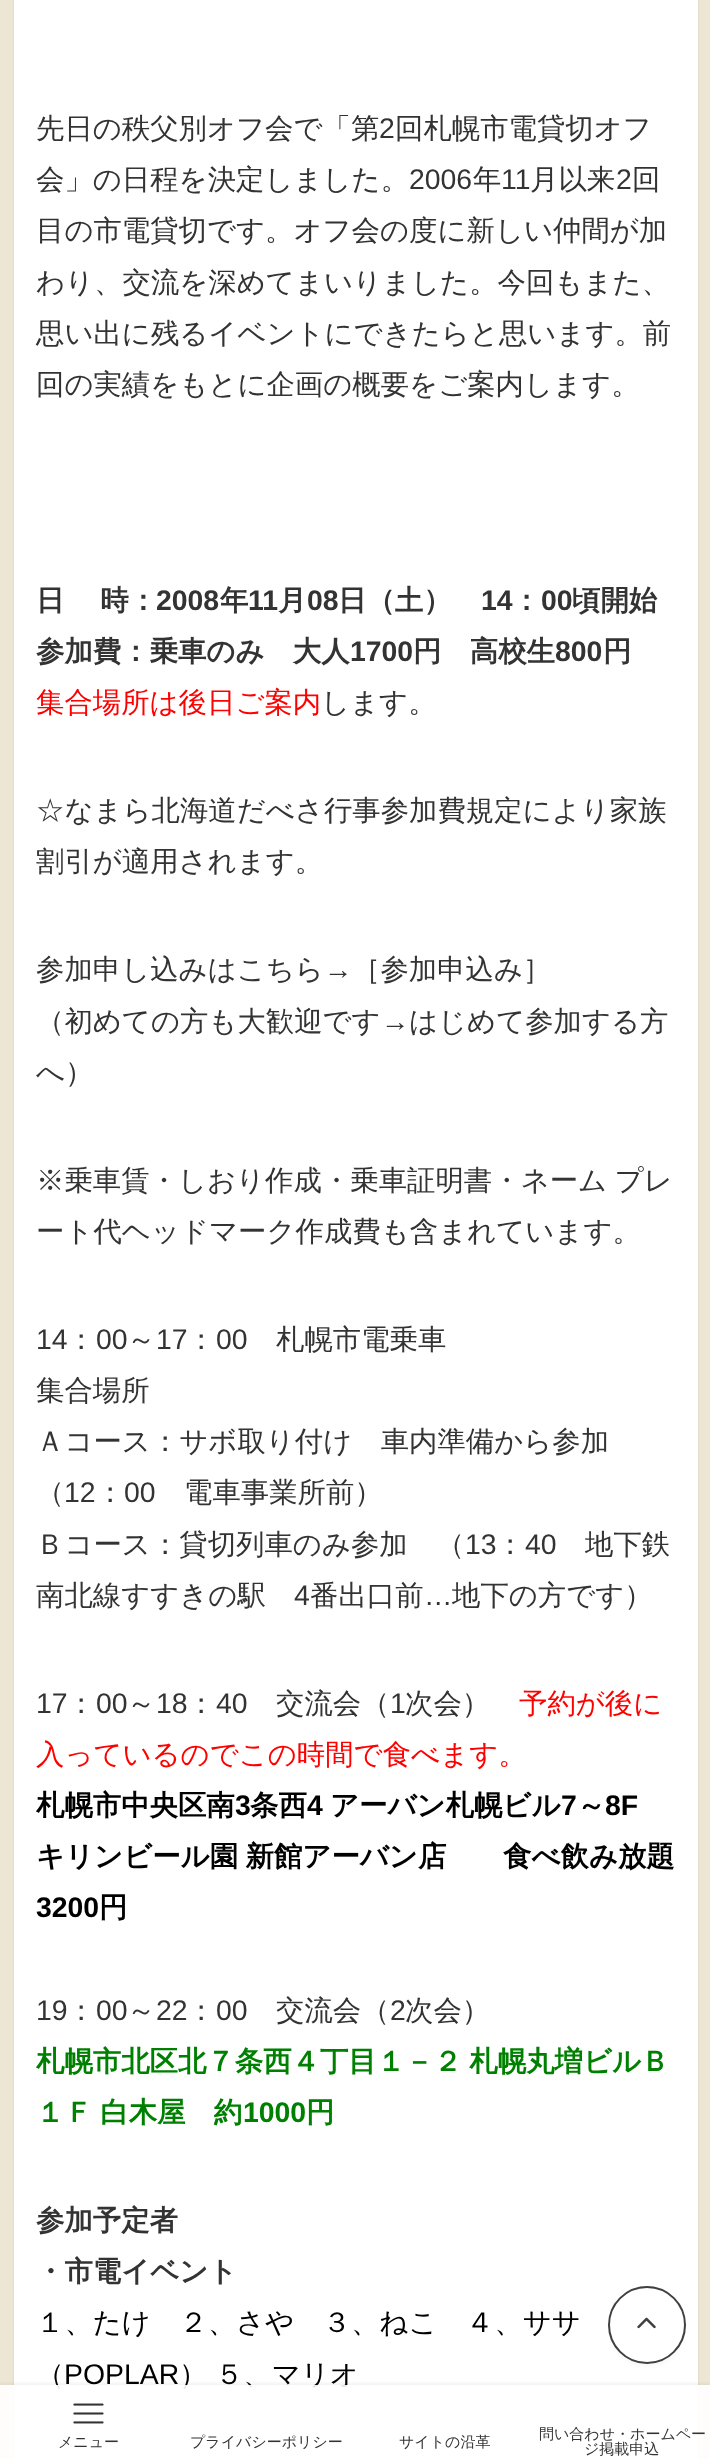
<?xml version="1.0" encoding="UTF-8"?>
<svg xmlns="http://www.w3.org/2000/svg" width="710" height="2459">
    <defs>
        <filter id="blur1" x="-50%" y="-200%" width="200%" height="500%"><feGaussianBlur stdDeviation="1"/></filter>
        <filter id="blur2" x="-50%" y="-200%" width="200%" height="500%"><feGaussianBlur stdDeviation="3"/></filter>
        <clipPath id="clip1"><rect x="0" y="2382" width="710" height="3"/></clipPath>
    </defs>
    <rect width="100%" height="100%" fill="#EDE6D5"/>
    <rect x="14" y="-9" width="684" height="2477" rx="6" fill="#000000" fill-opacity="0.12" filter="url(#blur1)"/>
    <rect x="14" y="0" width="684" height="2459" fill="#FFFFFF"/>
    <text x="36" y="138" font-family="WenQuanYi Zen Hei" font-size="28.4" font-weight="500" fill="#333333">先日の秩父別オフ会で「第</text>
    <text x="379" y="138" font-family="Liberation Sans" font-size="28.4" fill="#333333">2</text>
    <text x="395" y="138" font-family="WenQuanYi Zen Hei" font-size="28.4" font-weight="500" fill="#333333">回札幌市電貸切オフ</text>
    <text x="36" y="189" font-family="WenQuanYi Zen Hei" font-size="28.4" font-weight="500" fill="#333333">会」の日程を決定しました。</text>
    <text x="409" y="189" font-family="Liberation Sans" font-size="28.4" fill="#333333">2006</text>
    <text x="473" y="189" font-family="WenQuanYi Zen Hei" font-size="28.4" font-weight="500" fill="#333333">年</text>
    <text x="501" y="189" font-family="Liberation Sans" font-size="28.4" fill="#333333">11</text>
    <text x="530" y="189" font-family="WenQuanYi Zen Hei" font-size="28.4" font-weight="500" fill="#333333">月以来</text>
    <text x="616" y="189" font-family="Liberation Sans" font-size="28.4" fill="#333333">2</text>
    <text x="632" y="189" font-family="WenQuanYi Zen Hei" font-size="28.4" font-weight="500" fill="#333333">回</text>
    <text font-family="WenQuanYi Zen Hei" font-size="28.4" font-weight="500" fill="#333333">
        <tspan x="36" y="240">目の市電貸切です。オフ会の度に新しい仲間が加</tspan>
        <tspan x="36" y="292">わり、交流を深めてまいりました。今回もまた、</tspan>
        <tspan x="36" y="343">思い出に残るイベントにできたらと思います。前</tspan>
        <tspan x="36" y="394">回の実績をもとに企画の概要をご案内します。</tspan>
    </text>
    <text x="36" y="610" word-spacing="-1" font-family="WenQuanYi Zen Hei" font-size="28.4" font-weight="700" fill="#333333">日 　時：</text>
    <text x="156" y="610" font-family="Liberation Sans" font-size="28.4" font-weight="700" fill="#333333">2008</text>
    <text x="220" y="610" font-family="WenQuanYi Zen Hei" font-size="28.4" font-weight="700" fill="#333333">年</text>
    <text x="248" y="610" font-family="Liberation Sans" font-size="28.4" font-weight="700" fill="#333333">11</text>
    <text x="278" y="610" font-family="WenQuanYi Zen Hei" font-size="28.4" font-weight="700" fill="#333333">月</text>
    <text x="307" y="610" font-family="Liberation Sans" font-size="28.4" font-weight="700" fill="#333333">08</text>
    <text x="338" y="610" font-family="WenQuanYi Zen Hei" font-size="28.4" font-weight="700" fill="#333333">日（土）</text>
    <text x="481" y="610" font-family="Liberation Sans" font-size="28.4" font-weight="700" fill="#333333">14</text>
    <text x="512" y="610" font-family="WenQuanYi Zen Hei" font-size="28.4" font-weight="700" fill="#333333">：</text>
    <text x="541" y="610" font-family="Liberation Sans" font-size="28.4" font-weight="700" fill="#333333">00</text>
    <text x="572" y="610" font-family="WenQuanYi Zen Hei" font-size="28.4" font-weight="700" fill="#333333">頃開始</text>
    <text x="36" y="661" font-family="WenQuanYi Zen Hei" font-size="28.4" font-weight="700" fill="#333333">参加費：乗車のみ　大人</text>
    <text x="350" y="661" font-family="Liberation Sans" font-size="28.4" font-weight="700" fill="#333333">1700</text>
    <text x="413" y="661" font-family="WenQuanYi Zen Hei" font-size="28.4" font-weight="700" fill="#333333">円　高校生</text>
    <text x="555" y="661" font-family="Liberation Sans" font-size="28.4" font-weight="700" fill="#333333">800</text>
    <text x="603" y="661" font-family="WenQuanYi Zen Hei" font-size="28.4" font-weight="700" fill="#333333">円</text>
    <text x="36" y="712" font-family="WenQuanYi Zen Hei" font-size="28.4" font-weight="500" fill="#FF0000">集合場所は後日ご案内</text>
    <text x="321" y="712" font-family="WenQuanYi Zen Hei" font-size="28.4" font-weight="500" fill="#333333">します。</text>
    <text font-family="WenQuanYi Zen Hei" font-size="28.4" font-weight="500" fill="#333333">
        <tspan x="36" y="820">☆なまら北海道だべさ行事参加費規定により家族</tspan>
        <tspan x="36" y="871">割引が適用されます。</tspan>
    </text>
    <text x="36" y="979" font-family="WenQuanYi Zen Hei" font-size="28.4" font-weight="500" fill="#333333">参加申し込みはこちら</text>
    <text x="324" y="979" font-family="Liberation Sans" font-size="28.4" fill="#333333">→</text>
    <text x="352" y="979" font-family="WenQuanYi Zen Hei" font-size="28.4" font-weight="500" fill="#333333">［参加申込み］</text>
    <text x="36" y="1031" font-family="WenQuanYi Zen Hei" font-size="28.4" font-weight="500" fill="#333333">（初めての方も大歓迎です</text>
    <text x="381" y="1031" font-family="Liberation Sans" font-size="28.4" fill="#333333">→</text>
    <text x="409" y="1031" font-family="WenQuanYi Zen Hei" font-size="28.4" font-weight="500" fill="#333333">はじめて参加する方</text>
    <text x="36" y="1082" font-family="WenQuanYi Zen Hei" font-size="28.4" font-weight="500" fill="#333333">へ）</text>
    <text font-family="WenQuanYi Zen Hei" font-size="28.4" font-weight="500" fill="#333333">
        <tspan x="36" y="1190" word-spacing="-1">※乗車賃・しおり作成・乗車証明書・ネーム プレ</tspan>
        <tspan x="36" y="1241">ート代ヘッドマーク作成費も含まれています。</tspan>
    </text>
    <text x="36" y="1349" font-family="Liberation Sans" font-size="28.4" fill="#333333">14</text>
    <text x="67" y="1349" font-family="WenQuanYi Zen Hei" font-size="28.4" font-weight="500" fill="#333333">：</text>
    <text x="96" y="1349" font-family="Liberation Sans" font-size="28.4" fill="#333333">00</text>
    <text x="127" y="1349" font-family="WenQuanYi Zen Hei" font-size="28.4" font-weight="500" fill="#333333">～</text>
    <text x="156" y="1349" font-family="Liberation Sans" font-size="28.4" fill="#333333">17</text>
    <text x="187" y="1349" font-family="WenQuanYi Zen Hei" font-size="28.4" font-weight="500" fill="#333333">：</text>
    <text x="216" y="1349" font-family="Liberation Sans" font-size="28.4" fill="#333333">00</text>
    <text x="276" y="1349" font-family="WenQuanYi Zen Hei" font-size="28.4" font-weight="500" fill="#333333">札幌市電乗車</text>
    <text font-family="WenQuanYi Zen Hei" font-size="28.4" font-weight="500" fill="#333333">
        <tspan x="36" y="1400">集合場所</tspan>
        <tspan x="36" y="1451">Ａコース：サボ取り付け　車内準備から参加</tspan>
        <tspan x="36" y="1502">（</tspan>
    </text>
    <text x="64" y="1502" font-family="Liberation Sans" font-size="28.4" fill="#333333">12</text>
    <text x="96" y="1502" font-family="WenQuanYi Zen Hei" font-size="28.4" font-weight="500" fill="#333333">：</text>
    <text x="124" y="1502" font-family="Liberation Sans" font-size="28.4" fill="#333333">00</text>
    <text x="184" y="1502" font-family="WenQuanYi Zen Hei" font-size="28.4" font-weight="500" fill="#333333">電車事業所前）</text>
    <text x="36" y="1554" font-family="WenQuanYi Zen Hei" font-size="28.4" font-weight="500" fill="#333333">Ｂコース：貸切列車のみ参加　（</text>
    <text x="465" y="1554" font-family="Liberation Sans" font-size="28.4" fill="#333333">13</text>
    <text x="496" y="1554" font-family="WenQuanYi Zen Hei" font-size="28.4" font-weight="500" fill="#333333">：</text>
    <text x="525" y="1554" font-family="Liberation Sans" font-size="28.4" fill="#333333">40</text>
    <text x="585" y="1554" font-family="WenQuanYi Zen Hei" font-size="28.4" font-weight="500" fill="#333333">地下鉄</text>
    <text x="36" y="1605" font-family="WenQuanYi Zen Hei" font-size="28.4" font-weight="500" fill="#333333">南北線すすきの駅</text>
    <text x="294" y="1605" font-family="Liberation Sans" font-size="28.4" fill="#333333">4</text>
    <text x="310" y="1605" font-family="WenQuanYi Zen Hei" font-size="28.4" font-weight="500" fill="#333333">番出口前</text>
    <text x="424" y="1605" font-family="Liberation Sans" font-size="28.4" fill="#333333">…</text>
    <text x="452" y="1605" font-family="WenQuanYi Zen Hei" font-size="28.4" font-weight="500" fill="#333333">地下の方です）</text>
    <text x="36" y="1713" font-family="Liberation Sans" font-size="28.4" fill="#333333">17</text>
    <text x="67" y="1713" font-family="WenQuanYi Zen Hei" font-size="28.4" font-weight="500" fill="#333333">：</text>
    <text x="96" y="1713" font-family="Liberation Sans" font-size="28.4" fill="#333333">00</text>
    <text x="127" y="1713" font-family="WenQuanYi Zen Hei" font-size="28.4" font-weight="500" fill="#333333">～</text>
    <text x="156" y="1713" font-family="Liberation Sans" font-size="28.4" fill="#333333">18</text>
    <text x="187" y="1713" font-family="WenQuanYi Zen Hei" font-size="28.4" font-weight="500" fill="#333333">：</text>
    <text x="216" y="1713" font-family="Liberation Sans" font-size="28.4" fill="#333333">40</text>
    <text x="276" y="1713" font-family="WenQuanYi Zen Hei" font-size="28.4" font-weight="500" fill="#333333">交流会（</text>
    <text x="390" y="1713" font-family="Liberation Sans" font-size="28.4" fill="#333333">1</text>
    <text x="405" y="1713" font-family="WenQuanYi Zen Hei" font-size="28.4" font-weight="500" fill="#333333">次会）</text>
    <text x="519" y="1713" font-family="WenQuanYi Zen Hei" font-size="28.4" font-weight="500" fill="#FF0000">予約が後に</text>
    <text x="36" y="1764" font-family="WenQuanYi Zen Hei" font-size="28.4" font-weight="500" fill="#FF0000">入っているのでこの時間で食べます。</text>
    <text x="36" y="1815" font-family="WenQuanYi Zen Hei" font-size="28.4" font-weight="700" fill="#000000">札幌市中央区南</text>
    <text x="235" y="1815" font-family="Liberation Sans" font-size="28.4" font-weight="700" fill="#000000">3</text>
    <text x="250" y="1815" font-family="WenQuanYi Zen Hei" font-size="28.4" font-weight="700" fill="#000000">条西</text>
    <text x="307" y="1815" font-family="Liberation Sans" font-size="28.4" font-weight="700" fill="#000000">4</text>
    <text x="330" y="1815" font-family="WenQuanYi Zen Hei" font-size="28.4" font-weight="700" fill="#000000">アーバン札幌ビル</text>
    <text x="561" y="1815" font-family="Liberation Sans" font-size="28.4" font-weight="700" fill="#000000">7</text>
    <text x="577" y="1815" font-family="WenQuanYi Zen Hei" font-size="28.4" font-weight="700" fill="#000000">～</text>
    <text x="605" y="1815" font-family="Liberation Sans" font-size="28.4" font-weight="700" fill="#000000">8F</text>
    <text x="36" y="1866" word-spacing="-1" font-family="WenQuanYi Zen Hei" font-size="28.4" font-weight="700" fill="#000000">キリンビール園 新館アーバン店　　食べ飲み放題</text>
    <text x="36" y="1917" font-family="Liberation Sans" font-size="28.4" font-weight="700" fill="#000000">3200</text>
    <text x="99" y="1917" font-family="WenQuanYi Zen Hei" font-size="28.4" font-weight="700" fill="#000000">円</text>
    <text x="36" y="2020" font-family="Liberation Sans" font-size="28.4" fill="#333333">19</text>
    <text x="67" y="2020" font-family="WenQuanYi Zen Hei" font-size="28.4" font-weight="500" fill="#333333">：</text>
    <text x="96" y="2020" font-family="Liberation Sans" font-size="28.4" fill="#333333">00</text>
    <text x="127" y="2020" font-family="WenQuanYi Zen Hei" font-size="28.4" font-weight="500" fill="#333333">～</text>
    <text x="156" y="2020" font-family="Liberation Sans" font-size="28.4" fill="#333333">22</text>
    <text x="187" y="2020" font-family="WenQuanYi Zen Hei" font-size="28.4" font-weight="500" fill="#333333">：</text>
    <text x="216" y="2020" font-family="Liberation Sans" font-size="28.4" fill="#333333">00</text>
    <text x="276" y="2020" font-family="WenQuanYi Zen Hei" font-size="28.4" font-weight="500" fill="#333333">交流会（</text>
    <text x="390" y="2020" font-family="Liberation Sans" font-size="28.4" fill="#333333">2</text>
    <text x="405" y="2020" font-family="WenQuanYi Zen Hei" font-size="28.4" font-weight="500" fill="#333333">次会）</text>
    <text font-family="WenQuanYi Zen Hei" font-size="28.4" font-weight="700" fill="#008000">
        <tspan x="36" y="2071" word-spacing="-1">札幌市北区北７条西４丁目１－２ 札幌丸増ビルＢ</tspan>
        <tspan x="36" y="2122" word-spacing="-1">１Ｆ 白木屋　約</tspan>
    </text>
    <text x="243" y="2122" font-family="Liberation Sans" font-size="28.4" font-weight="700" fill="#008000">1000</text>
    <text x="306" y="2122" font-family="WenQuanYi Zen Hei" font-size="28.4" font-weight="700" fill="#008000">円</text>
    <text font-family="WenQuanYi Zen Hei" font-size="28.4" font-weight="700" fill="#333333">
        <tspan x="36" y="2230">参加予定者</tspan>
        <tspan x="36" y="2281">・市電イベント</tspan>
    </text>
    <text font-family="WenQuanYi Zen Hei" font-size="28.4" font-weight="500" fill="#000000">
        <tspan x="36" y="2332">１、たけ　２、さや　３、ねこ　４、ササ</tspan>
        <tspan x="36" y="2384">（</tspan>
    </text>
    <text x="64" y="2384" font-family="Liberation Sans" font-size="28.4" fill="#000000">POPLAR</text>
    <text x="179" y="2384" word-spacing="-1" font-family="WenQuanYi Zen Hei" font-size="28.4" font-weight="500" fill="#000000">） ５、マリオ</text>
    <rect x="614" y="2298" width="66" height="66" rx="33" fill="#404040" fill-opacity="0.1" filter="url(#blur2)"/>
    <circle cx="647" cy="2325" r="38" fill="#FFFFFF" stroke="#404040" stroke-width="2"/>
    <image x="637" y="2317" width="19" height="12" href="img_01.png"/>
    <g clip-path="url(#clip1)">
        <rect x="0" y="2385" width="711" height="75" fill="#000000" fill-opacity="0.1" filter="url(#blur2)"/>
    </g>
    <rect x="0" y="2385" width="710" height="74" fill="#FFFFFF" fill-opacity="0.9"/>
    <image x="73" y="2403" width="31" height="21" href="img_02.png"/>
    <text x="58" y="2447" font-family="WenQuanYi Zen Hei" font-size="15" font-weight="500" fill="#333333">メニュー</text>
    <text x="190" y="2447" font-family="WenQuanYi Zen Hei" font-size="15" font-weight="500" fill="#333333">プライバシーポリシー</text>
    <text x="399" y="2447" font-family="WenQuanYi Zen Hei" font-size="15" font-weight="500" fill="#333333">サイトの沿革</text>
    <text x="539" y="2439" font-family="WenQuanYi Zen Hei" font-size="15" font-weight="500" fill="#333333">問い合わせ・ホームペー</text>
    <text x="584" y="2454" font-family="WenQuanYi Zen Hei" font-size="15" font-weight="500" fill="#333333">ジ掲載申込</text>
</svg>
